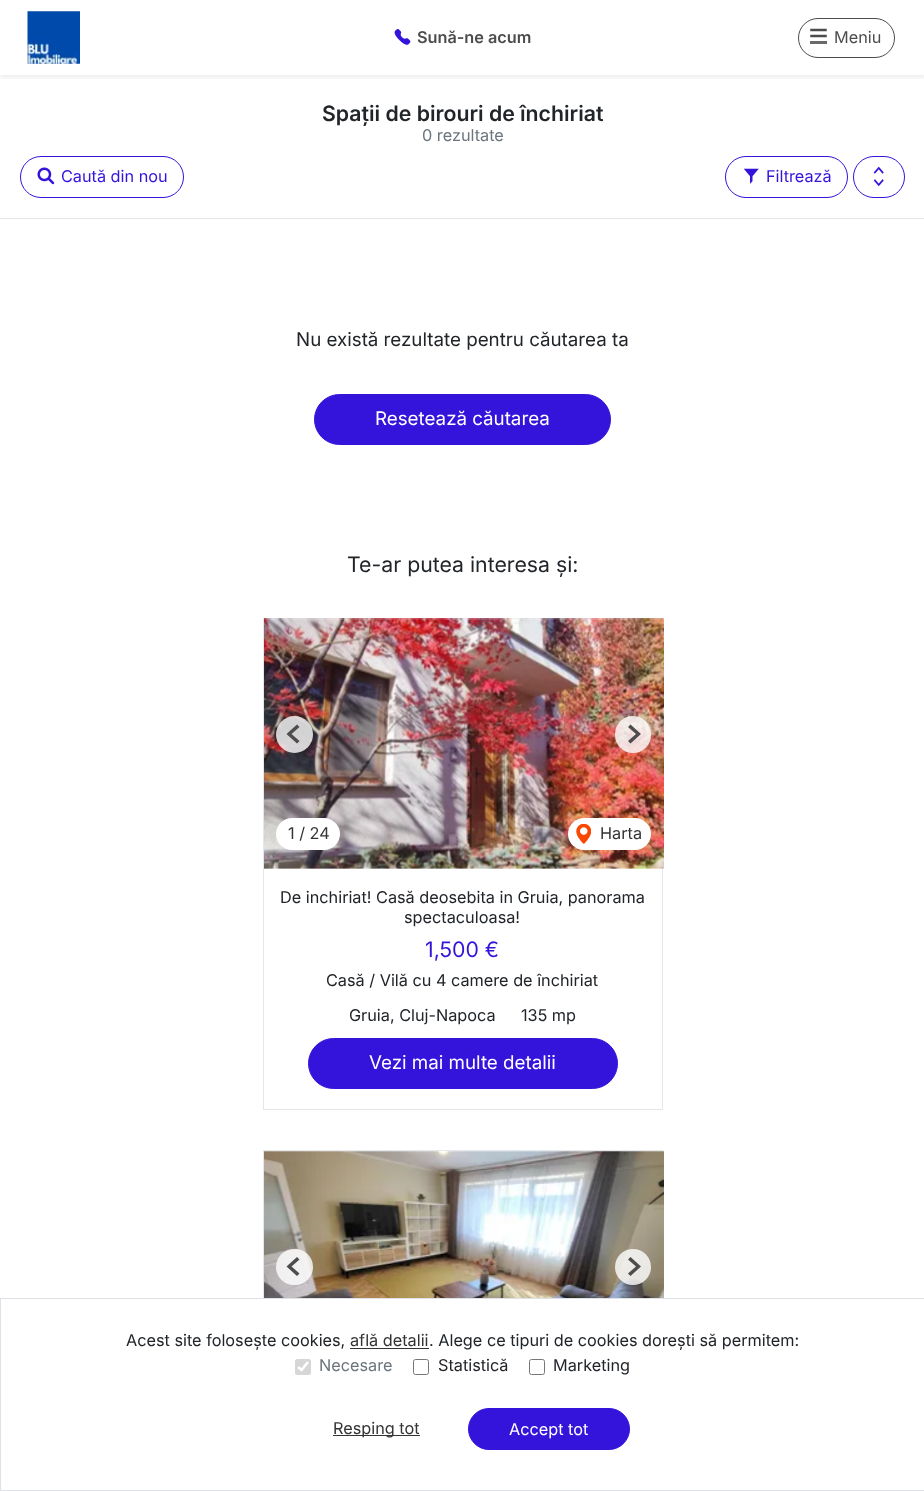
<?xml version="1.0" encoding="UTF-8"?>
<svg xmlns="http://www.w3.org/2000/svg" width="924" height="1491">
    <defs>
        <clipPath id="clip1"><rect x="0" y="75" width="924" height="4"/></clipPath>
        <filter id="blur1" x="-50%" y="-200%" width="200%" height="500%"><feGaussianBlur stdDeviation="2.5"/></filter>
    </defs>
    <rect width="100%" height="100%" fill="#FFFFFF"/>
    <g clip-path="url(#clip1)">
        <rect x="0" y="3" width="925" height="75" fill="#000000" fill-opacity="0.07" filter="url(#blur1)"/>
    </g>
    <image x="27" y="11" width="53" height="53" href="img_01.png"/>
    <image x="394" y="29" width="17" height="16" href="img_02.png"/>
    <text x="417" y="43" font-family="Inter" font-size="16.25" font-weight="600" fill="#4C4C4C">Sună-ne acum</text>
    <rect x="798.5" y="18.5" width="96" height="39" rx="19.5" fill="none" stroke="#4C4C4C"/>
    <path d="M 811.5 36 H 825.5 M 811.5 30 H 825.5" fill="none" stroke="#4C4C4C" stroke-width="2.5" stroke-linecap="square"/>
    <rect x="810" y="41" width="17" height="3" fill="#6A6A6A"/>
    <text x="834" y="43" font-family="Inter" font-size="16.25" fill="#4C4C4C">Meniu</text>
    <rect x="0" y="218" width="924" height="1" fill="#E4E7EB"/>
    <text x="322" y="121" font-family="Inter" font-size="21.25" font-weight="600" fill="#212529">Spații de birouri de închiriat</text>
    <text x="422" y="141" font-family="Inter" font-size="16.25" fill="#6C757D">0 rezultate</text>
    <rect x="20.5" y="156.5" width="163" height="41" rx="20.5" fill="none" stroke="#3414DB"/>
    <image x="37" y="167" width="18" height="18" href="img_03.png"/>
    <text x="61" y="182" font-family="Inter" font-size="16.25" fill="#3414DB">Caută din nou</text>
    <rect x="725.5" y="156.5" width="122" height="41" rx="20.5" fill="none" stroke="#3414DB"/>
    <image x="743" y="168" width="16" height="16" href="img_04.png"/>
    <text x="766" y="182" font-family="Inter" font-size="16.25" fill="#3414DB">Filtrează</text>
    <rect x="853.5" y="156.5" width="51" height="41" rx="20.5" fill="none" stroke="#3414DB"/>
    <image x="873" y="166" width="11" height="20" href="img_05.png"/>
    <text x="296" y="346" font-family="Inter" font-size="18.75" fill="#212529">Nu există rezultate pentru căutarea ta</text>
    <rect x="314.5" y="394.5" width="296" height="50" rx="25" fill="#3414DB" stroke="#3414DB"/>
    <text x="375" y="425" font-family="Inter" font-size="18.75" fill="#FFFFFF">Resetează căutarea</text>
    <text x="347" y="572" font-family="Inter" font-size="21.25" fill="#212529">Te-ar putea interesa și:</text>
    <rect x="263.5" y="618.5" width="399" height="491" fill="none" stroke="#E4E7EB"/>
    <image x="264" y="618" width="400" height="251" href="img_06.png"/>
    <circle cx="294.5" cy="734.5" r="18.5" fill="#FFFFFF" fill-opacity="0.8"/>
    <path d="M 299.5 727 L 291.5 734 L 299.5 741 L 297 743.5 L 286.5 734 L 297 724.5 Z" fill="#4D4D4D"/>
    <rect x="615" y="716" width="36" height="37" rx="18" fill="#FFFFFF" fill-opacity="0.8"/>
    <path d="M 628 741 L 636 734 L 628 727 L 630.5 724.5 L 641 734 L 630.5 743.5 Z" fill="#4D4D4D"/>
    <rect x="276" y="818" width="64" height="32" rx="16" fill="#FFFFFF"/>
    <text x="288" y="839" font-family="Inter" font-size="16.25" fill="#333333">1 / 24</text>
    <rect x="568" y="818" width="83" height="32" rx="16" fill="#FFFFFF"/>
    <image x="576" y="824" width="15" height="20" href="img_07.png"/>
    <text x="600" y="839" font-family="Inter" font-size="16.25" fill="#333333">Harta</text>
    <text x="280" y="903" font-family="Inter" font-size="16.25" fill="#212529">De inchiriat! Casă deosebita in Gruia, panorama</text>
    <text x="404" y="923" font-family="Inter" font-size="16.25" fill="#212529">spectaculoasa!</text>
    <text x="425" y="957" font-family="Inter" font-size="21.25" fill="#3414DB">1,500 €</text>
    <text x="326" y="986" font-family="Inter" font-size="16.25" fill="#212529">Casă / Vilă cu 4 camere de închiriat</text>
    <text x="349" y="1021" font-family="Inter" font-size="16.25" fill="#212529">Gruia, Cluj-Napoca</text>
    <text x="521" y="1021" font-family="Inter" font-size="16.25" fill="#212529">135 mp</text>
    <rect x="308.5" y="1038.5" width="309" height="50" rx="25" fill="#3414DB" stroke="#3414DB"/>
    <text x="369" y="1069" font-family="Inter" font-size="18.75" fill="#FFFFFF">Vezi mai multe detalii</text>
    <rect x="263.5" y="1150.5" width="399" height="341" fill="none" stroke="#E4E7EB"/>
    <image x="264" y="1151" width="400" height="147" href="img_08.png"/>
    <rect x="276" y="1249" width="37" height="36" rx="18" fill="#FFFFFF" fill-opacity="0.8"/>
    <path d="M 299.5 1259.5 L 291.5 1266.5 L 299.5 1273.5 L 297 1276 L 286.5 1266.5 L 297 1257 Z" fill="#4D4D4D"/>
    <circle cx="633" cy="1267" r="18" fill="#FFFFFF" fill-opacity="0.8"/>
    <path d="M 628 1273.5 L 636 1266.5 L 628 1259.5 L 630.5 1257 L 641 1266.5 L 630.5 1276 Z" fill="#4D4D4D"/>
    <rect x="263" y="1299" width="400" height="191" fill="#FFFFFF"/>
    <rect x="0.5" y="1298.5" width="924" height="192" fill="none" stroke="#DEE2E6"/>
    <text x="126" y="1346" font-family="Inter" font-size="16.25" fill="#212529">Acest site folosește cookies,</text>
    <text x="350" y="1346" font-family="Inter" font-size="16.25" fill="#333333">află detalii</text>
    <text x="429" y="1346" font-family="Inter" font-size="16.25" fill="#212529">. Alege ce tipuri de cookies dorești să permitem:</text>
    <rect x="350" y="1348" width="79" height="1" fill="#333333"/>
    <rect x="295" y="1359" width="16" height="16" rx="2.5" fill="#D6D6D6"/>
    <path d="M 298 1367 L 301.5 1370 L 308 1362" fill="none" stroke="#FFFFFF" stroke-width="2.6"/>
    <text x="319" y="1371" font-family="Inter" font-size="16.25" fill="#6C757D">Necesare</text>
    <rect x="413.5" y="1359.5" width="15" height="15" rx="2" fill="none" stroke="#767676"/>
    <text x="438" y="1371" font-family="Inter" font-size="16.25" fill="#212529">Statistică</text>
    <rect x="529.5" y="1359.5" width="15" height="15" rx="2" fill="none" stroke="#767676"/>
    <text x="553" y="1371" font-family="Inter" font-size="16.25" fill="#212529">Marketing</text>
    <rect x="333" y="1435" width="87" height="1" fill="#333333"/>
    <text x="333" y="1434" font-family="Inter" font-size="16.25" fill="#333333">Resping tot</text>
    <rect x="468.5" y="1408.5" width="161" height="41" rx="20.5" fill="#3414DB" stroke="#3414DB"/>
    <text x="509" y="1435" font-family="Inter" font-size="16.25" fill="#FFFFFF">Accept tot</text>
</svg>
